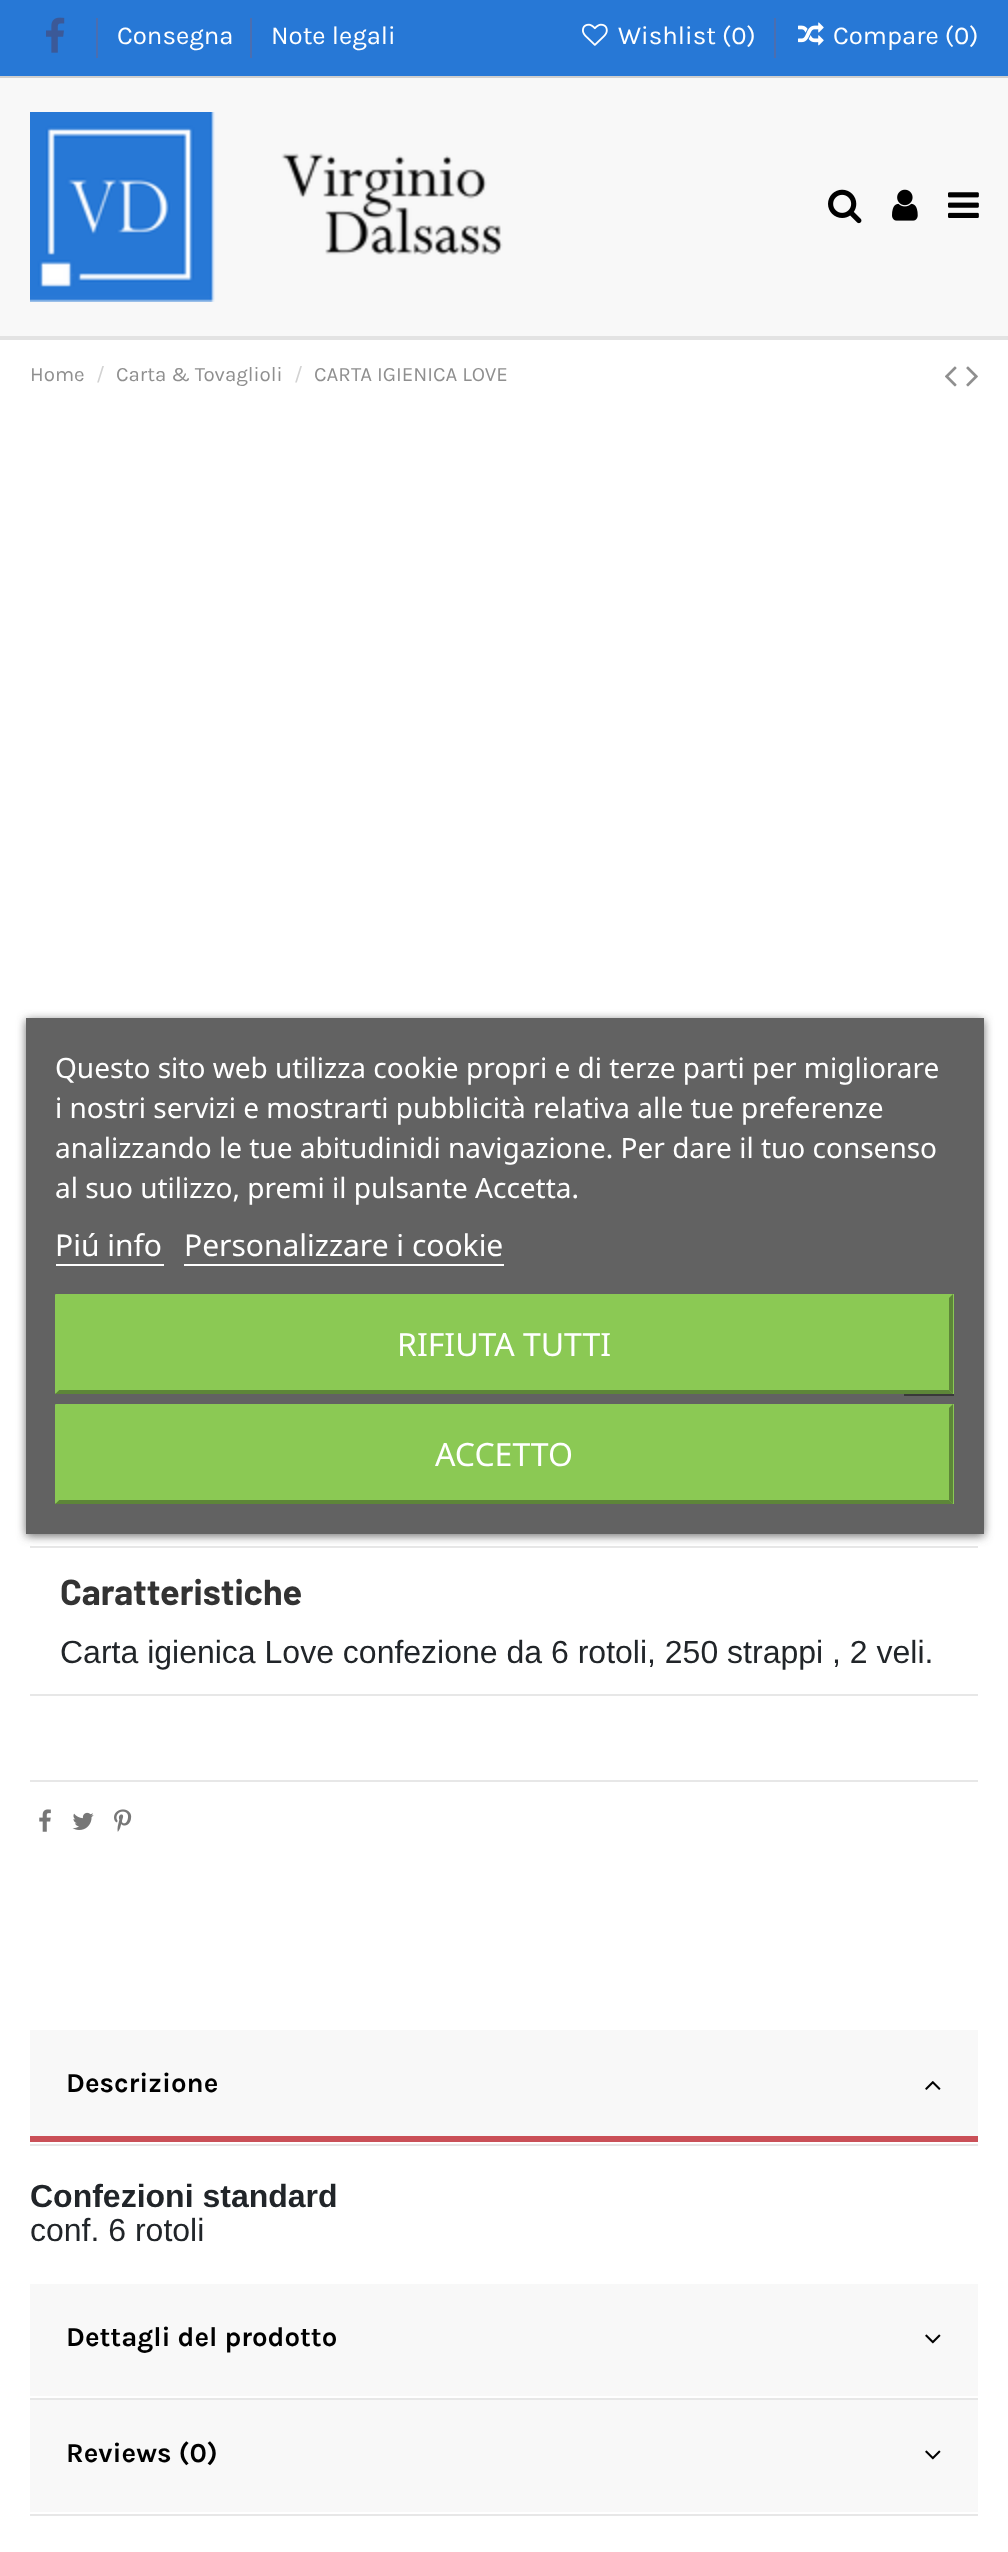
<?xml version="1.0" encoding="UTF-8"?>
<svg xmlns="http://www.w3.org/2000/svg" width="1008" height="2552">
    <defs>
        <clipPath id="clip1"><path d="M 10 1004 H 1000 V 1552 H 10 Z M 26 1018 H 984 V 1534 H 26 Z" clip-rule="evenodd"/></clipPath>
        <filter id="blur1" x="-50%" y="-200%" width="200%" height="500%"><feGaussianBlur stdDeviation="5"/></filter>
    </defs>
    <rect width="100%" height="100%" fill="#FFFFFF"/>
    <rect x="0" y="78" width="1008" height="258" fill="#F8F8F8"/>
    <rect x="0" y="336" width="1008" height="4" fill="#E3E3E3"/>
    <rect x="0" y="0" width="1008" height="76" fill="#2778D6"/>
    <rect x="0" y="76" width="1008" height="2" fill="#CFCFCF"/>
    <image x="46" y="17" width="19" height="36" href="img_01.png"/>
    <rect x="96" y="18" width="2" height="40" fill="#4B6EB0"/>
    <text x="117" y="44" font-family="Karla" font-size="25.75" fill="#FFFFFF">Consegna</text>
    <rect x="250" y="18" width="2" height="40" fill="#4B6EB0"/>
    <text x="271" y="44" font-family="Karla" font-size="25.75" fill="#FFFFFF">Note legali</text>
    <image x="582" y="23" width="26" height="23" href="img_02.png"/>
    <text x="618" y="44" font-family="Karla" font-size="25.75" fill="#FFFFFF">Wishlist (0)</text>
    <rect x="774" y="18" width="2" height="40" fill="#4B6EB0"/>
    <image x="798" y="22" width="26" height="24" href="img_03.png"/>
    <text x="833" y="44" font-family="Karla" font-size="25.75" fill="#FFFFFF">Compare (0)</text>
    <image x="30" y="112" width="473" height="190" href="img_04.png"/>
    <image x="828" y="189" width="34" height="35" href="img_05.png"/>
    <image x="892" y="189" width="26" height="32" href="img_06.png"/>
    <image x="948" y="192" width="31" height="26" href="img_07.png"/>
    <text x="30" y="381" font-family="Karla" font-size="20.5" fill="#8F8F8F">Home</text>
    <text x="96" y="381" font-family="Karla" font-size="20.5" fill="#D2D2D2">/</text>
    <text x="116" y="381" font-family="Karla" font-size="20.5" fill="#8F8F8F">Carta &amp; Tovaglioli</text>
    <text x="294" y="381" font-family="Karla" font-size="20.5" fill="#D2D2D2">/</text>
    <text x="314" y="381" font-family="Karla" font-size="20.5" fill="#8F8F8F">CARTA IGIENICA LOVE</text>
    <image x="945" y="366" width="12" height="21" href="img_08.png"/>
    <image x="966" y="366" width="12" height="21" href="img_09.png"/>
    <rect x="904" y="1394" width="50" height="2" fill="#333333"/>
    <rect x="30" y="1546" width="948" height="2" fill="#E7E7E7"/>
    <text x="60" y="1605" font-family="Barlow" font-size="36" font-weight="700" fill="#333333">Caratteristiche</text>
    <text x="60" y="1663" font-family="Liberation Sans" font-size="32" fill="#212529">Carta igienica Love confezione da 6 rotoli, 250 strappi , 2 veli.</text>
    <rect x="30" y="1694" width="948" height="2" fill="#E7E7E7"/>
    <rect x="30" y="1780" width="948" height="2" fill="#E7E7E7"/>
    <image x="39" y="1809" width="12" height="23" href="img_10.png"/>
    <image x="72" y="1812" width="22" height="18" href="img_11.png"/>
    <image x="114" y="1809" width="18" height="23" href="img_12.png"/>
    <rect x="30" y="2144" width="948" height="2" fill="#E7E7E7"/>
    <rect x="30" y="2030" width="948" height="106" fill="#F8F8F8"/>
    <rect x="30" y="2136" width="948" height="6" fill="#CA5058"/>
    <text x="66" y="2092" font-family="Karla" font-size="27.5" font-weight="700" fill="#000000">Descrizione</text>
    <image x="925" y="2081" width="16" height="9" href="img_13.png"/>
    <text x="30" y="2207" font-family="Liberation Sans" font-size="32" font-weight="700" fill="#212529">Confezioni standard</text>
    <text x="30" y="2241" font-family="Liberation Sans" font-size="32" fill="#212529">conf. 6 rotoli</text>
    <rect x="30" y="2398" width="948" height="2" fill="#E7E7E7"/>
    <rect x="30" y="2284" width="948" height="112" fill="#F8F8F8"/>
    <text x="66" y="2346" font-family="Karla" font-size="27.5" font-weight="700" fill="#000000">Dettagli del prodotto</text>
    <image x="925" y="2334" width="16" height="10" href="img_14.png"/>
    <rect x="30" y="2514" width="948" height="2" fill="#E7E7E7"/>
    <rect x="30" y="2400" width="948" height="112" fill="#F8F8F8"/>
    <text x="66" y="2462" font-family="Karla" font-size="27.5" font-weight="700" fill="#000000">Reviews (0)</text>
    <image x="925" y="2450" width="16" height="10" href="img_14.png"/>
    <g clip-path="url(#clip1)">
        <rect x="26" y="1020" width="958" height="516" fill="#707070" filter="url(#blur1)"/>
    </g>
    <rect x="26" y="1018" width="958" height="516" fill="#3B3B3B" fill-opacity="0.8"/>
    <text font-family="Noto Sans" font-size="28" fill="#FFFFFF">
        <tspan x="55" y="1078">Questo sito web utilizza cookie propri e di terze parti per migliorare</tspan>
        <tspan x="55" y="1118">i nostri servizi e mostrarti pubblicità relativa alle tue preferenze</tspan>
        <tspan x="55" y="1158">analizzando le tue abitudinidi navigazione. Per dare il tuo consenso</tspan>
        <tspan x="55" y="1198">al suo utilizzo, premi il pulsante Accetta.</tspan>
    </text>
    <text x="55" y="1256" font-family="Noto Sans" font-size="30" fill="#FFFFFF">Piú info</text>
    <rect x="56" y="1264" width="108" height="2" fill="#FFFFFF"/>
    <text x="184" y="1256" font-family="Noto Sans" font-size="30" fill="#FFFFFF">Personalizzare i cookie</text>
    <rect x="184" y="1264" width="320" height="2" fill="#FFFFFF"/>
    <rect x="56" y="1294" width="898" height="100" fill="#8BC954"/>
    <path d="M 55 1294 H 953 L 949 1298 H 59 Z" fill="#8BC954"/>
    <path d="M 953 1294 V 1394 L 949 1390 V 1298 Z" fill="#5D8638"/>
    <path d="M 953 1394 H 55 L 59 1390 H 949 Z" fill="#5D8638"/>
    <path d="M 55 1394 V 1294 L 59 1298 V 1390 Z" fill="#8BC954"/>
    <text x="397" y="1356" font-family="Noto Sans" font-size="32" fill="#FFFFFF">RIFIUTA TUTTI</text>
    <rect x="56" y="1404" width="898" height="100" fill="#8BC954"/>
    <path d="M 55 1404 H 953 L 949 1408 H 59 Z" fill="#8BC954"/>
    <path d="M 953 1404 V 1504 L 949 1500 V 1408 Z" fill="#5D8638"/>
    <path d="M 953 1504 H 55 L 59 1500 H 949 Z" fill="#5D8638"/>
    <path d="M 55 1504 V 1404 L 59 1408 V 1500 Z" fill="#8BC954"/>
    <text x="435" y="1466" font-family="Noto Sans" font-size="32" fill="#FFFFFF">ACCETTO</text>
</svg>
